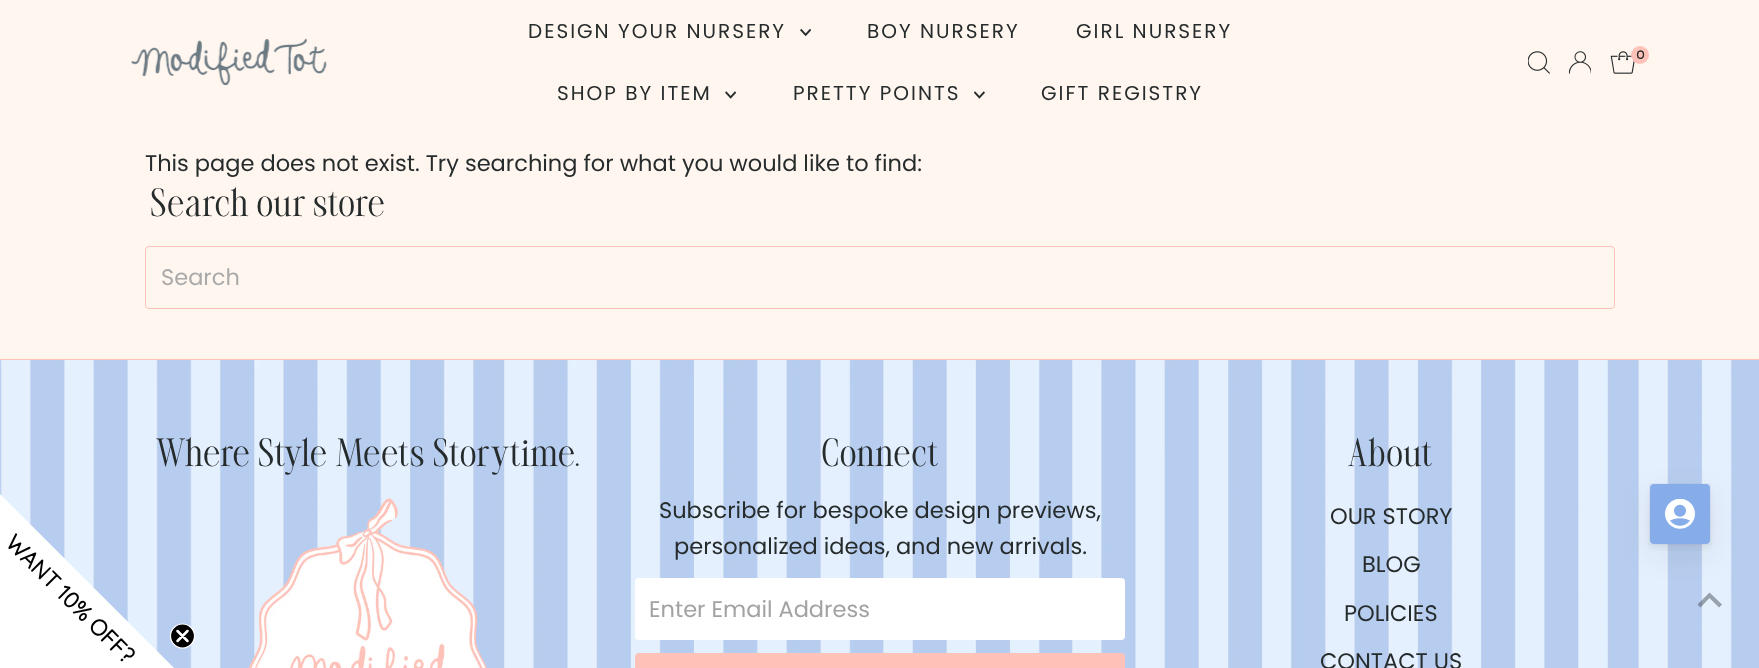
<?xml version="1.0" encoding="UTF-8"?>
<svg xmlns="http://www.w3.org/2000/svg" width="1759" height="668">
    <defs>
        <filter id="blur1" x="-50%" y="-200%" width="200%" height="500%"><feGaussianBlur stdDeviation="15"/></filter>
        <filter id="blur2" x="-50%" y="-200%" width="200%" height="500%"><feGaussianBlur stdDeviation="2.5"/></filter>
    </defs>
    <rect width="100%" height="100%" fill="#FFF6F0"/>
    <image x="0" y="360" width="1759" height="308" href="img_08.png"/>
    <path d="M 0 494 V 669 H 175 Z" fill="#FFFFFF"/>
    <text x="4" y="544" transform="rotate(45 4 544)" font-family="Quicksand" font-size="22.5" font-weight="700" fill="#000000">WANT 10% OFF?</text>
    <circle cx="182.5" cy="636" r="12" fill="#000000" stroke="#FFFFFF" stroke-width="1.2"/>
    <path d="M 177.5 631 L 187.5 641 M 177.5 641 L 187.5 631 Z" fill="none" stroke="#FFFFFF" stroke-width="2.5" stroke-linecap="round" stroke-linejoin="round"/>
    <image x="130" y="38" width="197" height="48" href="img_01.png"/>
    <text x="528" y="38" font-family="Poppins" font-size="20" letter-spacing="2" fill="#262B2C">DESIGN YOUR NURSERY</text>
    <image x="800" y="29" width="11" height="7" href="img_02.png"/>
    <text x="867" y="38" font-family="Poppins" font-size="20" letter-spacing="2" fill="#262B2C">BOY NURSERY</text>
    <text x="1076" y="38" font-family="Poppins" font-size="20" letter-spacing="2" fill="#262B2C">GIRL NURSERY</text>
    <text x="557" y="100" font-family="Poppins" font-size="20" letter-spacing="2" fill="#262B2C">SHOP BY ITEM</text>
    <image x="725" y="91" width="11" height="8" href="img_03.png"/>
    <text x="793" y="100" font-family="Poppins" font-size="20" letter-spacing="2" fill="#262B2C">PRETTY POINTS</text>
    <image x="974" y="91" width="11" height="8" href="img_04.png"/>
    <text x="1041" y="100" font-family="Poppins" font-size="20" letter-spacing="2" fill="#262B2C">GIFT REGISTRY</text>
    <image x="1528" y="51" width="22" height="23" href="img_05.png"/>
    <image x="1569" y="51" width="22" height="23" href="img_06.png"/>
    <image x="1610" y="51" width="25" height="23" href="img_07.png"/>
    <circle cx="1640" cy="55" r="9" fill="#FFC2B8"/>
    <text x="1635" y="59" font-family="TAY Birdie" font-size="12" fill="#262B2C">0</text>
    <text x="145" y="171" font-family="Poppins" font-size="22.5" fill="#262B2C">This page does not exist. Try searching for what you would like to find:</text>
    <text x="151" y="216" word-spacing="-1" font-family="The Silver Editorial" font-size="27.5" letter-spacing="2.05" fill="#262B2C">Search our store</text>
    <rect x="145.5" y="246.5" width="1469" height="62" rx="3.5" fill="none" stroke="#FFC2B8"/>
    <text x="161" y="285" font-family="Poppins" font-size="22.5" fill="#AAAAAA">Search</text>
    <rect x="0" y="359" width="1759" height="1" fill="#FFC2B8"/>
    <text x="156" y="466" font-family="The Silver Editorial" font-size="27.5" letter-spacing="2.05" fill="#262B2C">Where Style Meets Storytime.</text>
    <image x="249" y="498" width="238" height="170" href="img_09.png"/>
    <text x="822" y="466" font-family="The Silver Editorial" font-size="27.5" letter-spacing="2.05" fill="#262B2C">Connect</text>
    <text x="659" y="518" font-family="Poppins" font-size="22.5" fill="#262B2C">Subscribe for bespoke design previews,</text>
    <text x="674" y="554" font-family="Poppins" font-size="22.5" fill="#262B2C">personalized ideas, and new arrivals.</text>
    <rect x="635" y="578" width="490" height="62" rx="4" fill="#FFFFFF"/>
    <text x="649" y="617" font-family="Poppins" font-size="22.5" fill="#A2A2A2">Enter Email Address</text>
    <rect x="635" y="653" width="490" height="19" rx="4" fill="#FFC2B8"/>
    <text x="1348" y="466" font-family="The Silver Editorial" font-size="27.5" letter-spacing="2.05" fill="#262B2C">About</text>
    <text x="1330" y="524" font-family="Poppins" font-size="22.5" fill="#262B2C">OUR STORY</text>
    <text x="1362" y="572" font-family="Poppins" font-size="22.5" fill="#262B2C">BLOG</text>
    <text x="1344" y="621" font-family="Poppins" font-size="22.5" fill="#262B2C">POLICIES</text>
    <text x="1320" y="669" font-family="Poppins" font-size="22.5" fill="#262B2C">CONTACT US</text>
    <path d="M 1709.5 592.5 L 1697.5 604.5 L 1700.5 607.5 L 1709.5 598 L 1719 607.5 L 1722 604.5 Z" fill="#262B2C" fill-opacity="0.4"/>
    <rect x="1650" y="494" width="60" height="60" rx="4" fill="#373F47" fill-opacity="0.08" filter="url(#blur1)"/>
    <rect x="1650" y="489" width="60" height="60" rx="4" fill="#373F47" fill-opacity="0.08" filter="url(#blur2)"/>
    <rect x="1649.5" y="483.5" width="61" height="61" fill="none" stroke="#373F47" stroke-opacity="0.04"/>
    <rect x="1650" y="484" width="60" height="60" rx="4" fill="#87ACEA"/>
    <image x="1665" y="499" width="30" height="30" href="img_10.png"/>
</svg>
